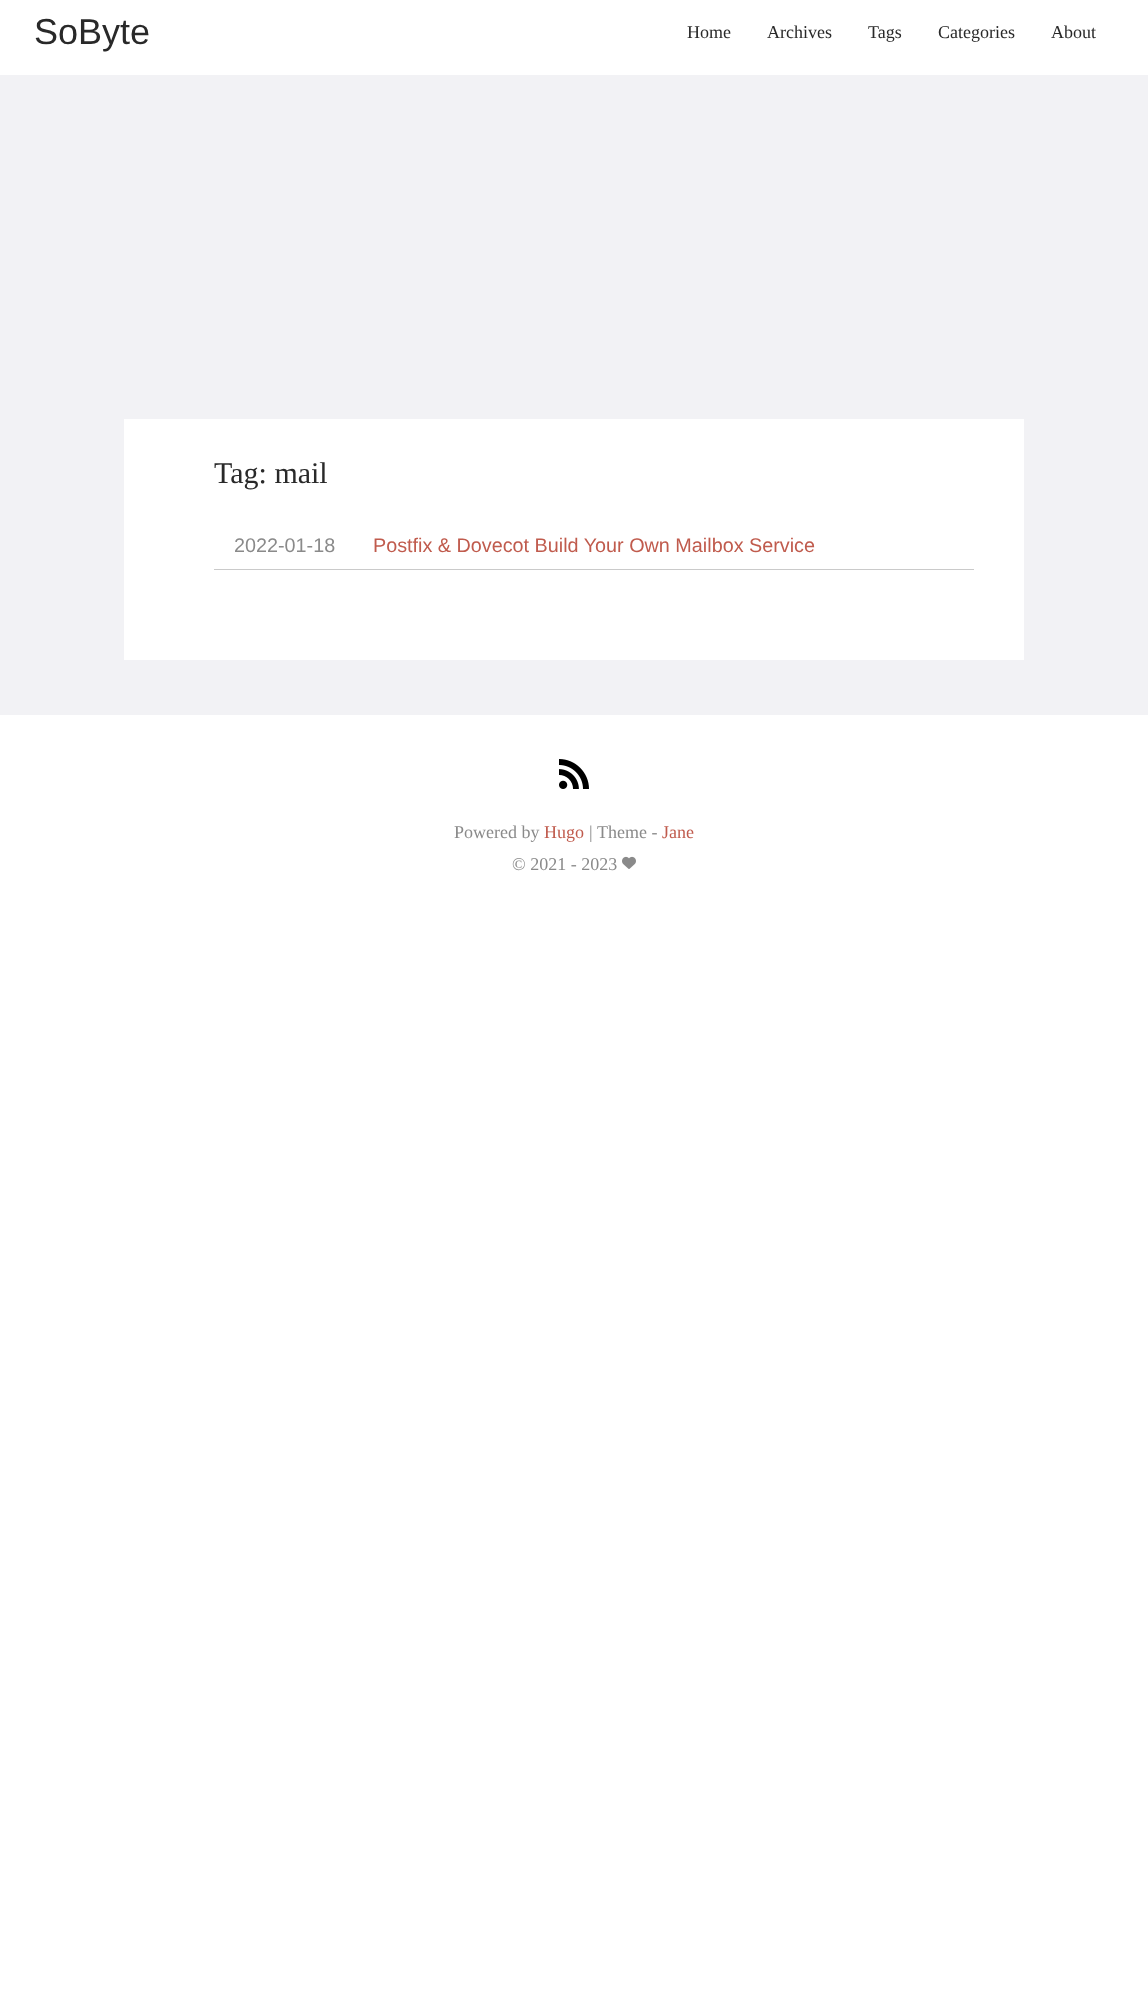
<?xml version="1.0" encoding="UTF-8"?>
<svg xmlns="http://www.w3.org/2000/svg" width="1148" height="1994">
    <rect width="100%" height="100%" fill="#FFFFFF"/>
    <text x="34" y="44" font-family="Liberation Sans" font-size="36" fill="#292929">SoByte</text>
    <text x="687" y="38" font-family="Liberation Serif" font-size="18" fill="#292929">Home</text>
    <text x="767" y="38" font-family="Liberation Serif" font-size="18" fill="#292929">Archives</text>
    <text x="868" y="38" font-family="Liberation Serif" font-size="18" fill="#292929">Tags</text>
    <text x="938" y="38" font-family="Liberation Serif" font-size="18" fill="#292929">Categories</text>
    <text x="1051" y="38" font-family="Liberation Serif" font-size="18" fill="#292929">About</text>
    <rect x="0" y="75" width="1148" height="640" fill="#F2F2F5"/>
    <rect x="124" y="419" width="900" height="241" fill="#FFFFFF"/>
    <text x="214" y="483" font-family="Liberation Serif" font-size="30" fill="#292929">Tag: mail</text>
    <rect x="214" y="569" width="760" height="1" fill="#CACACA"/>
    <text x="234" y="552" font-family="Liberation Sans" font-size="19.8" fill="#8A8A8A">2022-01-18</text>
    <text x="373" y="552" font-family="Liberation Sans" font-size="19.8" fill="#C05B4D">Postfix &amp; Dovecot Build Your Own Mailbox Service</text>
    <image x="559" y="759" width="30" height="30" href="img_01.png"/>
    <text x="454" y="838" font-family="Liberation Serif" font-size="18" fill="#8A8A8A">Powered by</text>
    <text x="544" y="838" font-family="Liberation Serif" font-size="18" fill="#C05B4D">Hugo</text>
    <text x="589" y="838" font-family="Liberation Serif" font-size="18" fill="#8A8A8A">|</text>
    <text x="597" y="838" font-family="Liberation Serif" font-size="18" fill="#8A8A8A">Theme -</text>
    <text x="662" y="838" font-family="Liberation Serif" font-size="18" fill="#C05B4D">Jane</text>
    <text x="512" y="870" font-family="Liberation Serif" font-size="18" fill="#8A8A8A">© 2021 - 2023</text>
    <image x="622" y="856" width="14" height="13" href="img_02.png"/>
</svg>
